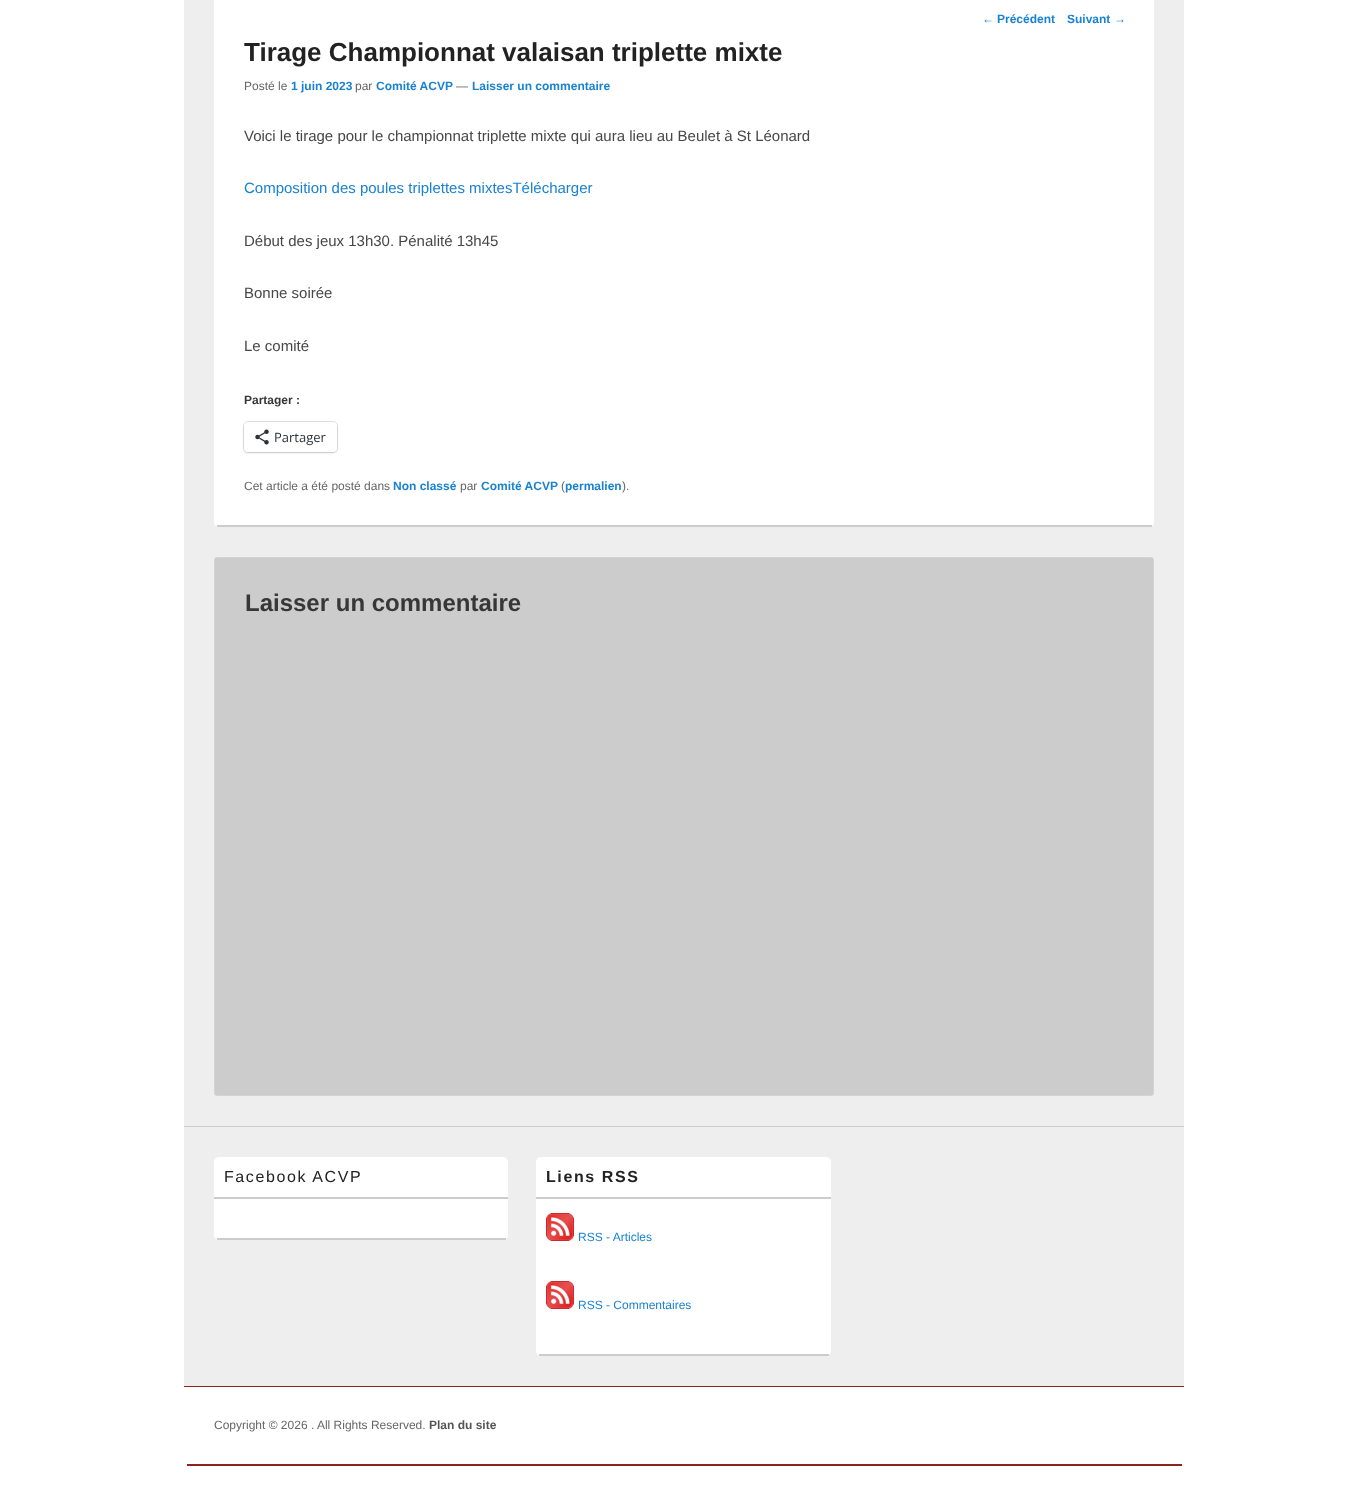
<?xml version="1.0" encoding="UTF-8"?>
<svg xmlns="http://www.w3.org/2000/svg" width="1368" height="1496">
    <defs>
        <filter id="blur1" x="-50%" y="-200%" width="200%" height="500%"><feGaussianBlur stdDeviation="1"/></filter>
    </defs>
    <rect width="100%" height="100%" fill="#FFFFFF"/>
    <rect x="184" y="-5" width="1000" height="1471" rx="5" fill="#EEEEEE"/>
    <rect x="214" y="-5" width="940" height="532" rx="5" fill="#FFFFFF"/>
    <text x="982" y="23" font-family="Liberation Sans" font-size="12" fill="#1982D1">←</text>
    <text x="997" y="23" font-family="Liberation Sans" font-size="12" font-weight="700" fill="#1982D1">Précédent</text>
    <text x="1067" y="23" font-family="Liberation Sans" font-size="12" font-weight="700" fill="#1982D1">Suivant</text>
    <text x="1114" y="23" font-family="Liberation Sans" font-size="12" fill="#1982D1">→</text>
    <rect x="217" y="525" width="935" height="2" fill="#CCCCCC"/>
    <text x="244" y="61" font-family="Liberation Sans" font-size="26" font-weight="700" fill="#222222">Tirage Championnat valaisan triplette mixte</text>
    <text x="244" y="90" font-family="Liberation Sans" font-size="12" fill="#666666">Posté le</text>
    <text x="291" y="90" font-family="Liberation Sans" font-size="12" font-weight="700" fill="#1982D1">1 juin 2023</text>
    <text x="355" y="90" font-family="Liberation Sans" font-size="12" fill="#666666">par</text>
    <text x="376" y="90" font-family="Liberation Sans" font-size="12" font-weight="700" fill="#1982D1">Comité ACVP</text>
    <text x="456" y="90" font-family="Liberation Sans" font-size="12" fill="#666666">—</text>
    <text x="472" y="90" font-family="Liberation Sans" font-size="12" font-weight="700" fill="#1982D1">Laisser un commentaire</text>
    <text x="244" y="141" font-family="Liberation Sans" font-size="15" fill="#474747">Voici le tirage pour le championnat triplette mixte qui aura lieu au Beulet à St Léonard</text>
    <text x="244" y="193" font-family="Liberation Sans" font-size="15" fill="#1982D1">Composition des poules triplettes mixtesTélécharger</text>
    <text x="244" y="246" font-family="Liberation Sans" font-size="15" fill="#474747">Début des jeux 13h30. Pénalité 13h45</text>
    <text x="244" y="298" font-family="Liberation Sans" font-size="15" fill="#474747">Bonne soirée</text>
    <text x="244" y="351" font-family="Liberation Sans" font-size="15" fill="#474747">Le comité</text>
    <text x="244" y="404" font-family="Liberation Sans" font-size="12" font-weight="700" fill="#373737">Partager :</text>
    <rect x="243.5" y="421.5" width="94" height="31" rx="4.5" fill="none" stroke="#E0E0E0"/>
    <rect x="244" y="423" width="93" height="30" rx="4" fill="#000000" fill-opacity="0.12" filter="url(#blur1)"/>
    <rect x="244" y="422" width="93" height="30" rx="4" fill="#FFFFFF"/>
    <image x="255" y="429" width="14" height="16" href="img_01.png"/>
    <text x="274" y="442" font-family="Open Sans" font-size="13" fill="#2C3338">Partager</text>
    <text x="244" y="490" font-family="Liberation Sans" font-size="12" fill="#666666">Cet article a été posté dans</text>
    <text x="393" y="490" font-family="Liberation Sans" font-size="12" font-weight="700" fill="#1982D1">Non classé</text>
    <text x="460" y="490" font-family="Liberation Sans" font-size="12" fill="#666666">par</text>
    <text x="481" y="490" font-family="Liberation Sans" font-size="12" font-weight="700" fill="#1982D1">Comité ACVP</text>
    <text x="561" y="490" font-family="Liberation Sans" font-size="12" fill="#666666">(</text>
    <text x="565" y="490" font-family="Liberation Sans" font-size="12" font-weight="700" fill="#1982D1">permalien</text>
    <text x="622" y="490" font-family="Liberation Sans" font-size="12" fill="#666666">).</text>
    <rect x="214.5" y="557.5" width="939" height="538" rx="2.5" fill="#CCCCCC" stroke="#D3D3D3"/>
    <text x="245" y="611" font-family="Liberation Sans" font-size="24" font-weight="700" fill="#373737">Laisser un commentaire</text>
    <rect x="184" y="1126" width="1000" height="1" fill="#CCCCCC"/>
    <rect x="214" y="1157" width="294" height="83" rx="5" fill="#FFFFFF"/>
    <rect x="217" y="1238" width="289" height="2" fill="#CCCCCC"/>
    <rect x="214" y="1197" width="294" height="2" fill="#CCCCCC"/>
    <text x="224" y="1182" font-family="Liberation Sans" font-size="16" letter-spacing="1.6" fill="#222222">Facebook ACVP</text>
    <rect x="536" y="1157" width="295" height="199" rx="5" fill="#FFFFFF"/>
    <rect x="539" y="1354" width="290" height="2" fill="#CCCCCC"/>
    <rect x="536" y="1197" width="295" height="2" fill="#CCCCCC"/>
    <text x="546" y="1182" font-family="Liberation Sans" font-size="16" font-weight="700" letter-spacing="1.6" fill="#222222">Liens RSS</text>
    <image x="546" y="1213" width="28" height="28" href="img_02.png"/>
    <text x="578" y="1241" font-family="Liberation Sans" font-size="12" fill="#1982D1">RSS - Articles</text>
    <image x="546" y="1281" width="28" height="28" href="img_02.png"/>
    <text x="578" y="1309" font-family="Liberation Sans" font-size="12" fill="#1982D1">RSS - Commentaires</text>
    <path d="M 184 1386 H 1184 V 1461 C 1184 1464 1182 1466 1179 1466 H 189 C 186 1466 184 1464 184 1461 Z" fill="#FFFFFF"/>
    <rect x="184" y="1386" width="1000" height="1" fill="#89251E"/>
    <rect x="187" y="1464" width="995" height="2" fill="#89251E"/>
    <text x="214" y="1429" font-family="Liberation Sans" font-size="12" fill="#666666">Copyright © 2026 . All Rights Reserved.</text>
    <text x="429" y="1429" font-family="Liberation Sans" font-size="12" font-weight="700" fill="#555555">Plan du site</text>
</svg>
